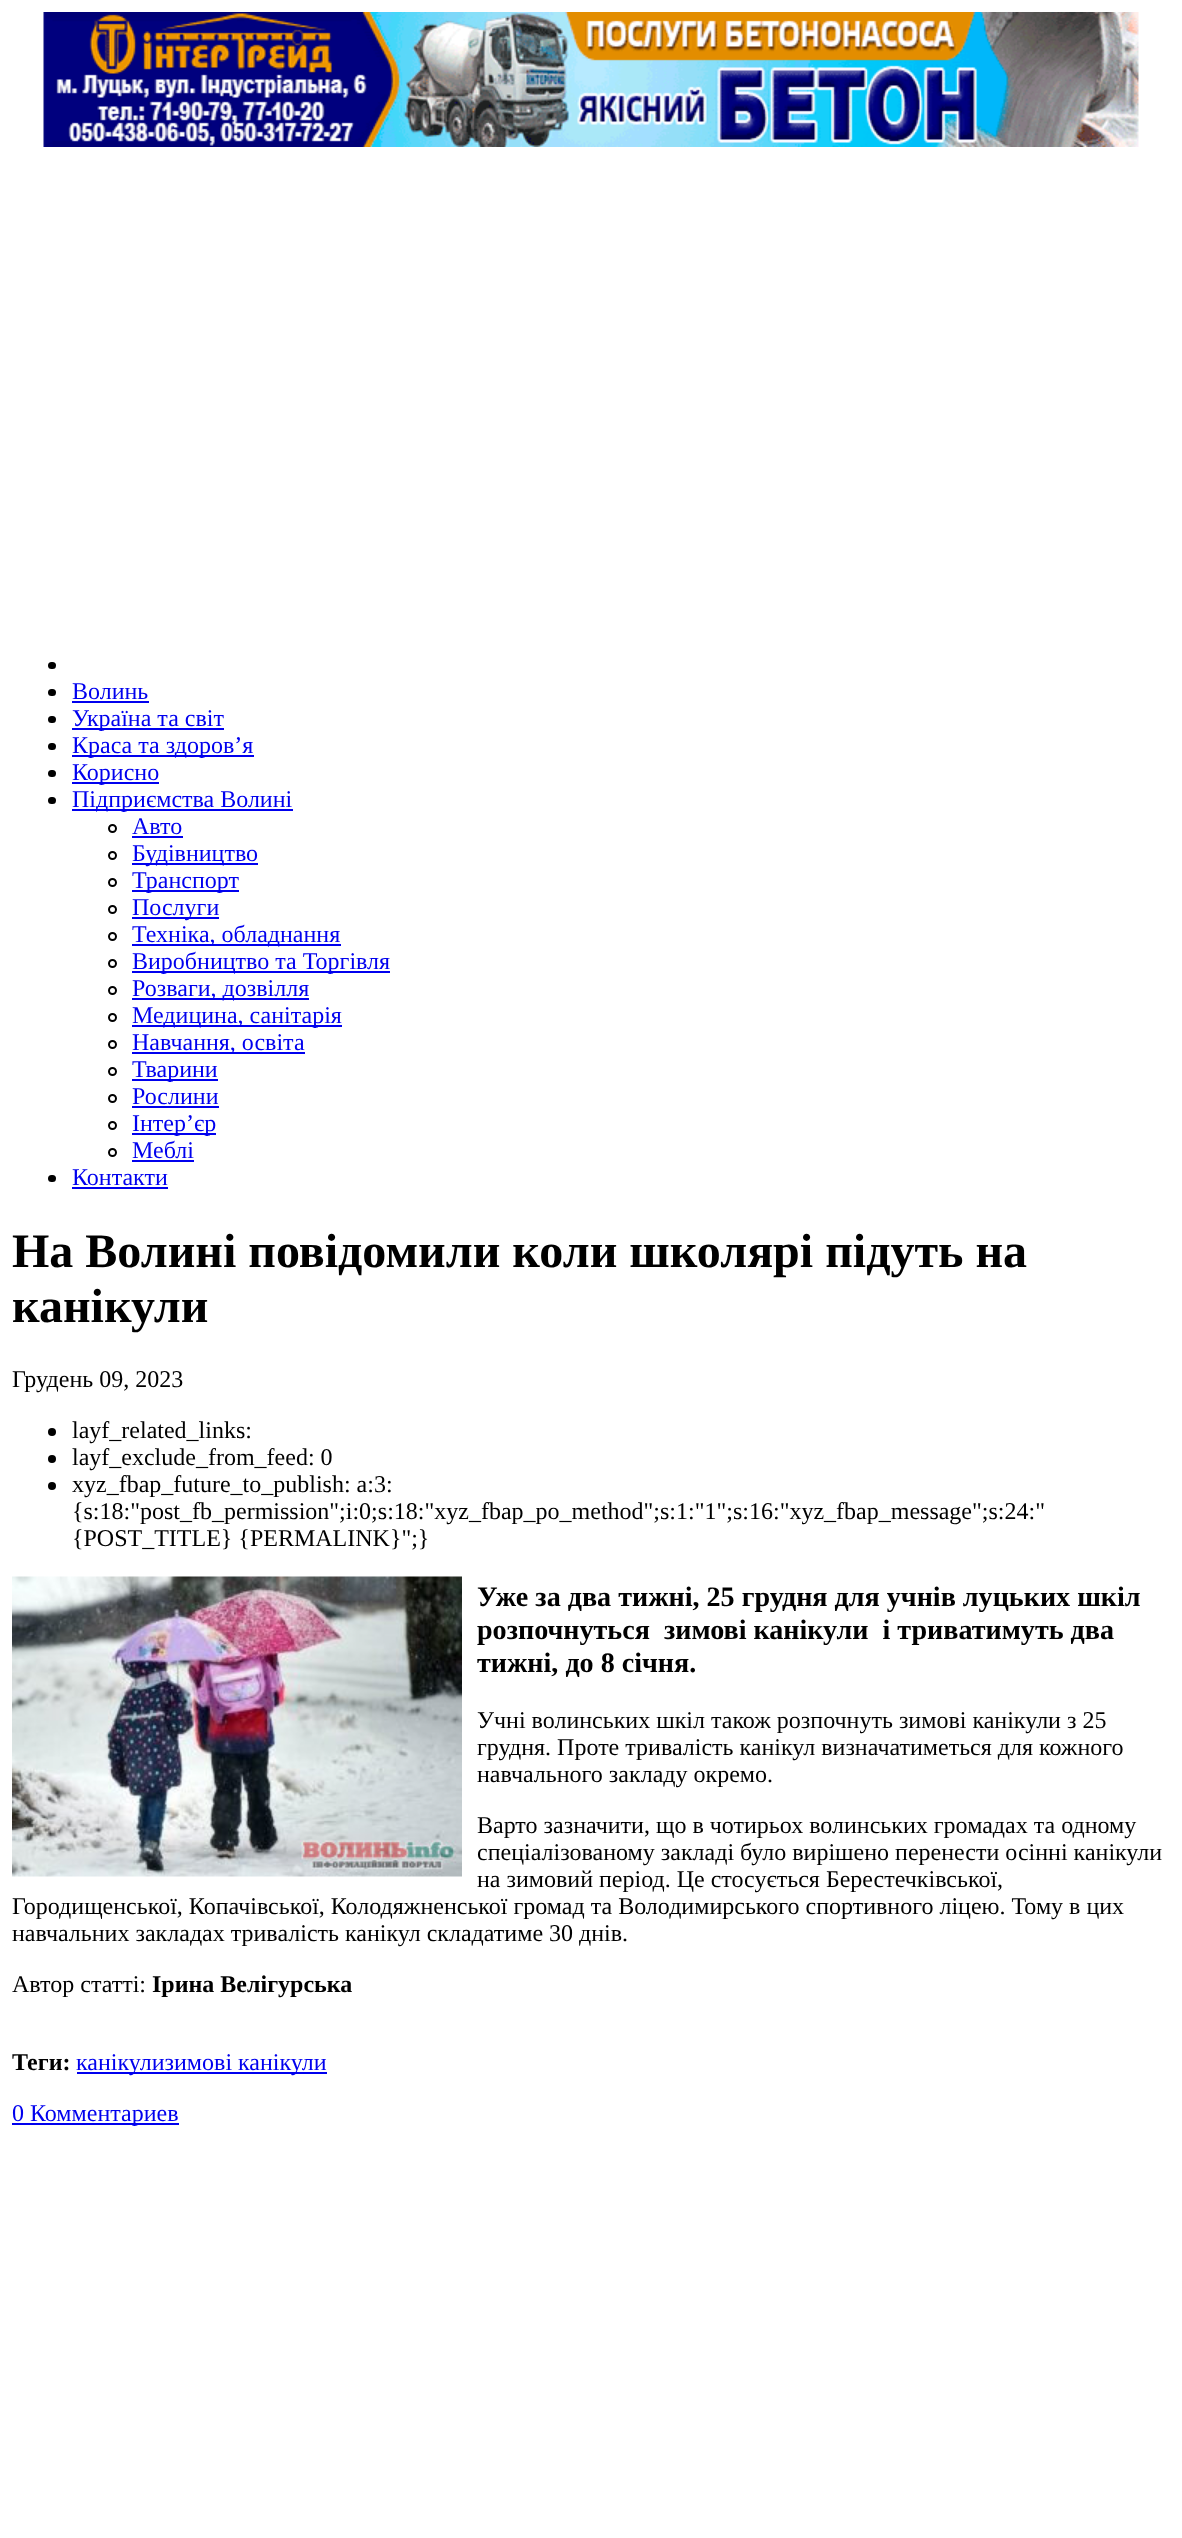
<?xml version="1.0" encoding="UTF-8"?>
<svg xmlns="http://www.w3.org/2000/svg" width="1182" height="2538">
    <rect width="100%" height="100%" fill="#FFFFFF"/>
    <image x="43" y="12" width="1096" height="135" href="img_01.png"/>
    <rect x="48" y="662" width="8" height="7" rx="3.5" fill="#000000"/>
    <rect x="48" y="689" width="8" height="7" rx="3.5" fill="#000000"/>
    <text x="72" y="699" font-family="Liberation Serif" font-size="24" fill="#0000EE">Волинь</text>
    <rect x="72" y="701" width="77" height="2" fill="#0000EE"/>
    <rect x="48" y="716" width="8" height="7" rx="3.5" fill="#000000"/>
    <rect x="72" y="728" width="152" height="2" fill="#0000EE"/>
    <text x="72" y="726" font-family="Liberation Serif" font-size="24" fill="#0000EE">Україна та світ</text>
    <rect x="48" y="743" width="8" height="7" rx="3.5" fill="#000000"/>
    <rect x="72" y="755" width="182" height="2" fill="#0000EE"/>
    <text x="72" y="753" font-family="Liberation Serif" font-size="24" fill="#0000EE">Краса та здоров’я</text>
    <rect x="48" y="770" width="8" height="7" rx="3.5" fill="#000000"/>
    <rect x="72" y="782" width="87" height="2" fill="#0000EE"/>
    <text x="72" y="780" font-family="Liberation Serif" font-size="24" fill="#0000EE">Корисно</text>
    <rect x="48" y="797" width="8" height="7" rx="3.5" fill="#000000"/>
    <rect x="72" y="809" width="221" height="2" fill="#0000EE"/>
    <text x="72" y="807" font-family="Liberation Serif" font-size="24" fill="#0000EE">Підприємства Волині</text>
    <circle cx="112.5" cy="828.5" r="3.5" fill="none" stroke="#000000" stroke-width="2"/>
    <text x="132" y="834" font-family="Liberation Serif" font-size="24" fill="#0000EE">Авто</text>
    <rect x="132" y="836" width="51" height="2" fill="#0000EE"/>
    <circle cx="112.5" cy="855.5" r="3.5" fill="none" stroke="#000000" stroke-width="2"/>
    <rect x="132" y="863" width="126" height="2" fill="#0000EE"/>
    <text x="132" y="861" font-family="Liberation Serif" font-size="24" fill="#0000EE">Будівництво</text>
    <circle cx="112.5" cy="882.5" r="3.5" fill="none" stroke="#000000" stroke-width="2"/>
    <rect x="132" y="890" width="107" height="2" fill="#0000EE"/>
    <text x="132" y="888" font-family="Liberation Serif" font-size="24" fill="#0000EE">Транспорт</text>
    <circle cx="112.5" cy="909.5" r="3.5" fill="none" stroke="#000000" stroke-width="2"/>
    <rect x="132" y="917" width="87" height="2" fill="#0000EE"/>
    <text x="132" y="915" font-family="Liberation Serif" font-size="24" fill="#0000EE">Послуги</text>
    <circle cx="112.5" cy="936.5" r="3.5" fill="none" stroke="#000000" stroke-width="2"/>
    <rect x="132" y="944" width="209" height="2" fill="#0000EE"/>
    <text x="132" y="942" font-family="Liberation Serif" font-size="24" fill="#0000EE">Техніка, обладнання</text>
    <circle cx="112.5" cy="963.5" r="3.5" fill="none" stroke="#000000" stroke-width="2"/>
    <rect x="132" y="971" width="258" height="2" fill="#0000EE"/>
    <text x="132" y="969" font-family="Liberation Serif" font-size="24" fill="#0000EE">Виробництво та Торгівля</text>
    <circle cx="112.5" cy="990.5" r="3.5" fill="none" stroke="#000000" stroke-width="2"/>
    <rect x="132" y="998" width="177" height="2" fill="#0000EE"/>
    <text x="132" y="996" font-family="Liberation Serif" font-size="24" fill="#0000EE">Розваги, дозвілля</text>
    <circle cx="112.5" cy="1017.5" r="3.5" fill="none" stroke="#000000" stroke-width="2"/>
    <rect x="132" y="1025" width="210" height="2" fill="#0000EE"/>
    <text x="132" y="1023" font-family="Liberation Serif" font-size="24" fill="#0000EE">Медицина, санітарія</text>
    <circle cx="112.5" cy="1044.5" r="3.5" fill="none" stroke="#000000" stroke-width="2"/>
    <rect x="132" y="1052" width="173" height="2" fill="#0000EE"/>
    <text x="132" y="1050" font-family="Liberation Serif" font-size="24" fill="#0000EE">Навчання, освіта</text>
    <circle cx="112.5" cy="1071.5" r="3.5" fill="none" stroke="#000000" stroke-width="2"/>
    <rect x="132" y="1079" width="86" height="2" fill="#0000EE"/>
    <text x="132" y="1077" font-family="Liberation Serif" font-size="24" fill="#0000EE">Тварини</text>
    <circle cx="112.5" cy="1098.5" r="3.5" fill="none" stroke="#000000" stroke-width="2"/>
    <text x="132" y="1104" font-family="Liberation Serif" font-size="24" fill="#0000EE">Рослини</text>
    <rect x="132" y="1106" width="87" height="2" fill="#0000EE"/>
    <circle cx="112.5" cy="1125.5" r="3.5" fill="none" stroke="#000000" stroke-width="2"/>
    <rect x="132" y="1133" width="84" height="2" fill="#0000EE"/>
    <text x="132" y="1131" font-family="Liberation Serif" font-size="24" fill="#0000EE">Інтер’єр</text>
    <circle cx="112.5" cy="1152.5" r="3.5" fill="none" stroke="#000000" stroke-width="2"/>
    <text x="132" y="1158" font-family="Liberation Serif" font-size="24" fill="#0000EE">Меблі</text>
    <rect x="132" y="1160" width="62" height="2" fill="#0000EE"/>
    <rect x="48" y="1175" width="8" height="7" rx="3.5" fill="#000000"/>
    <text x="72" y="1185" font-family="Liberation Serif" font-size="24" fill="#0000EE">Контакти</text>
    <rect x="72" y="1187" width="96" height="2" fill="#0000EE"/>
    <text font-family="Liberation Serif" font-size="48" font-weight="700" fill="#000000">
        <tspan x="12" y="1267">На Волині повідомили коли школярі підуть на</tspan>
        <tspan x="12" y="1322">канікули</tspan>
    </text>
    <text x="12" y="1387" font-family="Liberation Serif" font-size="24" fill="#000000">Грудень 09, 2023</text>
    <circle cx="52" cy="1432" r="4" fill="#000000"/>
    <text x="72" y="1438" font-family="Liberation Serif" font-size="24" fill="#000000">layf_related_links:</text>
    <circle cx="52" cy="1459" r="4" fill="#000000"/>
    <text x="72" y="1465" font-family="Liberation Serif" font-size="24" fill="#000000">layf_exclude_from_feed: 0</text>
    <circle cx="52" cy="1486" r="4" fill="#000000"/>
    <text font-family="Liberation Serif" font-size="24" fill="#000000">
        <tspan x="72" y="1492">xyz_fbap_future_to_publish: a:3:</tspan>
        <tspan x="72" y="1519">{s:18:"post_fb_permission";i:0;s:18:"xyz_fbap_po_method";s:1:"1";s:16:"xyz_fbap_message";s:24:"</tspan>
        <tspan x="72" y="1546">{POST_TITLE} {PERMALINK}";}</tspan>
    </text>
    <image x="12" y="1576" width="450" height="301" href="img_02.png"/>
    <text font-family="Liberation Serif" font-size="28.1" font-weight="700" fill="#000000" xml:space="preserve"><tspan x="477" y="1606">Уже за два тижні, 25 грудня для учнів луцьких шкіл</tspan><tspan x="477" y="1639">розпочнуться  зимові канікули  і триватимуть два</tspan><tspan x="477" y="1672">тижні, до 8 січня.</tspan></text>
    <text font-family="Liberation Serif" font-size="24" fill="#000000">
        <tspan x="477" y="1728">Учні волинських шкіл також розпочнуть зимові канікули з 25</tspan>
        <tspan x="477" y="1755">грудня. Проте тривалість канікул визначатиметься для кожного</tspan>
        <tspan x="477" y="1782">навчального закладу окремо.</tspan>
    </text>
    <text font-family="Liberation Serif" font-size="24" fill="#000000">
        <tspan x="477" y="1833">Варто зазначити, що в чотирьох волинських громадах та одному</tspan>
        <tspan x="477" y="1860">спеціалізованому закладі було вирішено перенести осінні канікули</tspan>
        <tspan x="477" y="1887">на зимовий період. Це стосується Берестечківської,</tspan>
    </text>
    <text font-family="Liberation Serif" font-size="24" fill="#000000">
        <tspan x="12" y="1914">Городищенської, Копачівської, Колодяжненської громад та Володимирського спортивного ліцею. Тому в цих</tspan>
        <tspan x="12" y="1941">навчальних закладах тривалість канікул складатиме 30 днів.</tspan>
    </text>
    <text x="12" y="1992" font-family="Liberation Serif" font-size="24" fill="#000000">Автор статті:</text>
    <text x="152" y="1992" font-family="Liberation Serif" font-size="24" font-weight="700" fill="#000000">Ірина Велігурська</text>
    <text x="12" y="2070" font-family="Liberation Serif" font-size="24" font-weight="700" fill="#000000">Теги:</text>
    <rect x="77" y="2072" width="250" height="2" fill="#0000EE"/>
    <text x="76" y="2070" font-family="Liberation Serif" font-size="24" fill="#0000EE">канікулизимові канікули</text>
    <rect x="12" y="2123" width="167" height="2" fill="#0000EE"/>
    <text x="12" y="2121" font-family="Liberation Serif" font-size="24" fill="#0000EE">0 Комментариев</text>
</svg>
